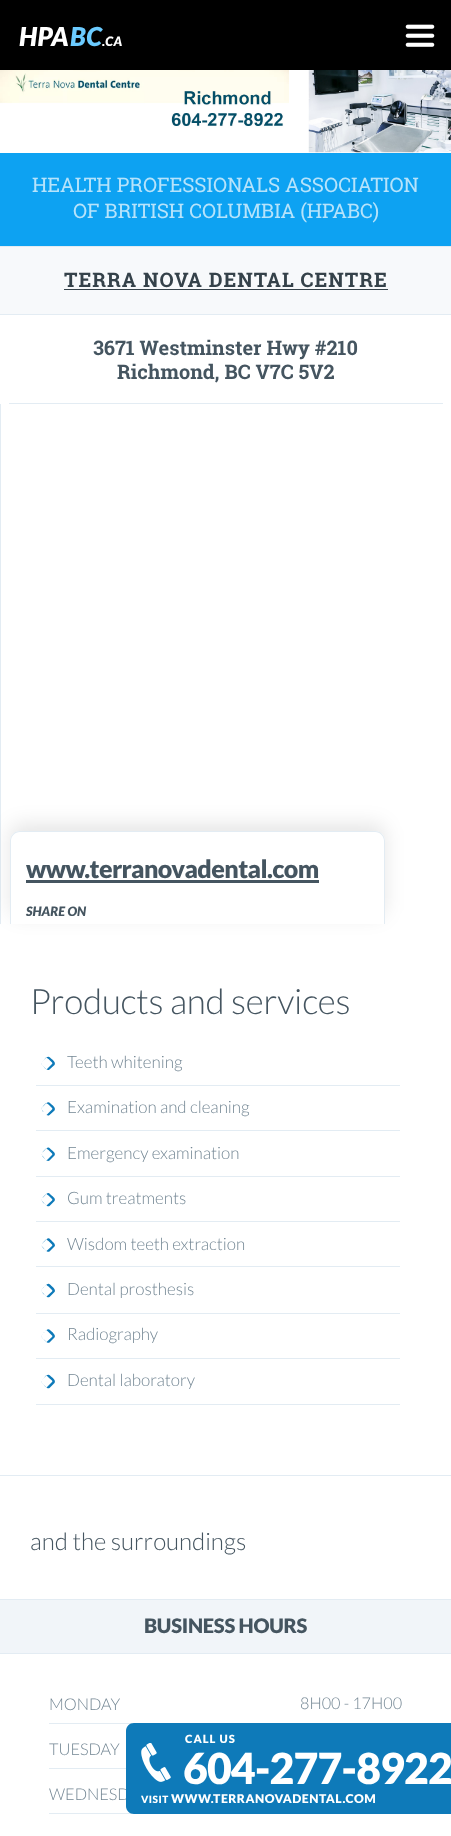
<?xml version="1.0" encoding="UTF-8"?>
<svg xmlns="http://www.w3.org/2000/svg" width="451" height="1836">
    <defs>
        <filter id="blur1" x="-50%" y="-200%" width="200%" height="500%"><feGaussianBlur stdDeviation="10"/></filter>
    </defs>
    <rect width="100%" height="100%" fill="#FFFFFF"/>
    <rect x="0" y="0" width="451" height="70" fill="#000000"/>
    <image x="405" y="24" width="30" height="23" href="img_01.png"/>
    <text x="19" y="46" font-family="Lato" font-size="26" font-weight="900" font-style="italic" letter-spacing="0.5" fill="#FFFFFF">HPA</text>
    <text x="70" y="46" font-family="Lato" font-size="26" font-weight="900" font-style="italic" letter-spacing="0.5" fill="#6BCBFF">BC</text>
    <text x="102" y="46" font-family="Lato" font-size="13" font-weight="900" font-style="italic" letter-spacing="0.5" fill="#FFFFFF">.CA</text>
    <image x="0" y="70" width="451" height="83" href="img_02.png"/>
    <rect x="0" y="153" width="451" height="93" fill="#0DA2F2"/>
    <text x="32" y="192" font-family="Roboto Slab" font-size="20" fill="#B6E3FB">HEALTH PROFESSIONALS ASSOCIATION</text>
    <text x="73" y="218" font-family="Roboto Slab" font-size="20" fill="#B6E3FB">OF BRITISH COLUMBIA (HPABC)</text>
    <rect x="0" y="247" width="451" height="67" fill="#F7F9FB"/>
    <rect x="0" y="246" width="451" height="1" fill="#E3ECF3"/>
    <rect x="0" y="314" width="451" height="1" fill="#E3ECF3"/>
    <text x="64" y="287" font-family="Roboto Slab" font-size="20" font-weight="700" letter-spacing="1" fill="#35424A">TERRA NOVA DENTAL CENTRE</text>
    <rect x="64" y="289" width="324" height="1" fill="#35424A"/>
    <rect x="9" y="403" width="434" height="1" fill="#E3ECF3"/>
    <text x="93" y="355" font-family="Roboto Slab" font-size="20" font-weight="700" fill="#455560">3671 Westminster Hwy #210</text>
    <text x="117" y="379" font-family="Roboto Slab" font-size="20" font-weight="700" fill="#455560">Richmond, BC V7C 5V2</text>
    <rect x="0" y="404" width="1" height="520" fill="#E3ECF3"/>
    <rect x="10" y="824" width="375" height="92" rx="10" fill="#000000" fill-opacity="0.1" filter="url(#blur1)"/>
    <path d="M 20 831 H 375 C 380.5 831 385 835.5 385 841 V 924 H 10 V 841 C 10 835.5 14.5 831 20 831 Z" fill="#FFFFFF"/>
    <path d="M 20 831 H 375 C 381 831 385 836 385 841 V 924 H 10 V 841 C 10 836 14 831 20 831 Z M 20 832 H 375 C 380 832 384 836 384 841 V 924 H 11 V 841 C 11 836 15 832 20 832 Z" fill="#E3ECF3" fill-rule="evenodd"/>
    <text x="26" y="878" font-family="Lato" font-size="25" font-weight="900" letter-spacing="-0.6" fill="#455560">www.terranovadental.com</text>
    <rect x="26" y="880" width="293" height="3" fill="#455560"/>
    <text x="26" y="916" font-family="Lato" font-size="13" font-weight="900" font-style="italic" fill="#455560">SHARE ON</text>
    <rect x="0" y="1475" width="451" height="1" fill="#E3ECF3"/>
    <text x="30" y="1014" font-family="Lato" font-size="35" font-weight="300" letter-spacing="-0.2" fill="#455560">Products and services</text>
    <rect x="36" y="1085" width="364" height="1" fill="#E3ECF3"/>
    <path d="M 50 1057.5 C 51.5 1059 56.5 1062 54.5 1065 L 49.5 1069.5 C 47 1071.5 44 1067 42.5 1065.5 C 40 1063 43 1061 44.5 1059.5 C 46 1058 48 1055.5 50 1057.5 Z M 48.5 1059 L 52 1062.5 C 52.5 1063.5 52.5 1063 52 1064 L 46.5 1069.5 L 43.5 1066.5 C 41 1064 41 1063 43.5 1060.5 C 46.5 1057 45.5 1056.5 48.5 1059 Z M 50 1103 C 51.5 1104.5 56.5 1107.5 54.5 1110.5 L 49.5 1115 C 47 1117 44 1112.5 42.5 1110.5 C 40 1108.5 43 1106.5 44.5 1105 C 46 1103.5 48 1101 50 1103 Z M 48.5 1104.5 L 52 1108 C 52.5 1109 52.5 1108.5 52 1109.5 L 46.5 1115 L 43.5 1112 C 41 1109.5 41 1108.5 43.5 1105.5 C 46.5 1102.5 45.5 1102 48.5 1104.5 Z" fill="#0E7AB9" fill-rule="evenodd"/>
    <text x="67" y="1068" font-family="Lato" font-size="17" font-weight="300" fill="#748794">Teeth whitening</text>
    <rect x="36" y="1130" width="364" height="1" fill="#E3ECF3"/>
    <text x="67" y="1113" font-family="Lato" font-size="17" font-weight="300" fill="#748794">Examination and cleaning</text>
    <rect x="36" y="1176" width="364" height="1" fill="#E3ECF3"/>
    <path d="M 50 1148.5 C 51.5 1150 56.5 1153 54.5 1155.5 L 49.5 1160.5 C 47 1162.5 44 1157.5 42.5 1156 C 40 1154 43 1152 44.5 1150.5 C 46 1149 48 1146 50 1148.5 Z M 48.5 1150 L 52 1153.5 C 52.5 1154.5 52.5 1154 52 1155 L 46.5 1160.5 L 43.5 1157.5 C 41 1154.5 41 1154 43.5 1151 C 46.5 1148 45.5 1147.5 48.5 1150 Z M 50 1194 C 51.5 1195.5 56.5 1198.5 54.5 1201 L 49.5 1206 C 47 1207.5 44 1203 42.5 1201.5 C 40 1199.5 43 1197.5 44.5 1196 C 46 1194.5 48 1191.5 50 1194 Z M 48.5 1195.5 L 52 1199 C 52.5 1200 52.5 1199.5 52 1200.5 L 46.5 1205.5 L 43.5 1203 C 41 1200 41 1199.5 43.5 1196.5 C 46.5 1193.5 45.5 1193 48.5 1195.5 Z" fill="#0E7AB9" fill-rule="evenodd"/>
    <text x="67" y="1159" font-family="Lato" font-size="17" font-weight="300" fill="#748794">Emergency examination</text>
    <rect x="36" y="1221" width="364" height="1" fill="#E3ECF3"/>
    <text x="67" y="1204" font-family="Lato" font-size="17" font-weight="300" fill="#748794">Gum treatments</text>
    <rect x="36" y="1266" width="364" height="1" fill="#E3ECF3"/>
    <path d="M 50 1239 C 51.5 1241 56.5 1244 54.5 1246.5 L 49.5 1251.5 C 47 1253 44 1248.5 42.5 1247 C 40 1245 43 1243 44.5 1241.5 C 46 1240 48 1237 50 1239 Z M 48.5 1241 L 52 1244.5 C 52.5 1245.5 52.5 1245 52 1246 L 46.5 1251 L 43.5 1248.5 C 41 1245.5 41 1245 43.5 1242 C 46.5 1239 45.5 1238.5 48.5 1241 Z M 50 1284.5 C 51.5 1286 56.5 1289.5 54.5 1292 L 49.5 1297 C 47 1298.5 44 1294 42.5 1292.5 C 40 1290 43 1288 44.5 1286.5 C 46 1285.5 48 1282.5 50 1284.5 Z M 48.5 1286.5 L 52 1290 C 52.5 1291 52.5 1290.5 52 1291.5 L 46.5 1296.5 L 43.5 1294 C 41 1291 41 1290 43.5 1287.5 C 46.5 1284.5 45.5 1284 48.5 1286.5 Z" fill="#0E7AB9" fill-rule="evenodd"/>
    <text x="67" y="1250" font-family="Lato" font-size="17" font-weight="300" fill="#748794">Wisdom teeth extraction</text>
    <rect x="36" y="1313" width="364" height="1" fill="#E3ECF3"/>
    <text x="67" y="1295" font-family="Lato" font-size="17" font-weight="300" fill="#748794">Dental prosthesis</text>
    <rect x="36" y="1358" width="364" height="1" fill="#E3ECF3"/>
    <path d="M 50 1330 C 51.5 1331.5 56.5 1335 54.5 1337.5 L 49.5 1342.5 C 47 1344 44 1339.5 42.5 1338 C 40 1335.5 43 1333.5 44.5 1332 C 46 1330.5 48 1328 50 1330 Z M 48.5 1332 L 52 1335.5 C 52.5 1336 52.5 1336 52 1337 L 46.5 1342 L 43.5 1339 C 41 1336.5 41 1335.5 43.5 1333 C 46.5 1330 45.5 1329 48.5 1332 Z M 50 1375.5 C 51.5 1377 56.5 1380 54.5 1383 L 49.5 1388 C 47 1389.5 44 1385 42.5 1383.5 C 40 1381 43 1379 44.5 1377.5 C 46 1376 48 1373.5 50 1375.5 Z M 48.5 1377.5 L 52 1380.5 C 52.5 1381.5 52.5 1381 52 1382 L 46.5 1387.5 L 43.5 1384.5 C 41 1382 41 1381 43.5 1378.5 C 46.5 1375 45.5 1374.5 48.5 1377.5 Z" fill="#0E7AB9" fill-rule="evenodd"/>
    <text x="67" y="1340" font-family="Lato" font-size="17" font-weight="300" fill="#748794">Radiography</text>
    <rect x="36" y="1404" width="364" height="1" fill="#E3ECF3"/>
    <text x="67" y="1386" font-family="Lato" font-size="17" font-weight="300" fill="#748794">Dental laboratory</text>
    <rect x="0" y="1599" width="451" height="1" fill="#E3ECF3"/>
    <text x="30" y="1550" font-family="Lato" font-size="24" font-weight="300" fill="#455560">and the surroundings</text>
    <rect x="0" y="1600" width="451" height="53" fill="#F1F5F9"/>
    <rect x="0" y="1653" width="451" height="1" fill="#E3ECF3"/>
    <text x="144" y="1633" font-family="Lato" font-size="20" font-weight="900" letter-spacing="-0.25" fill="#455560">BUSINESS HOURS</text>
    <rect x="49" y="1723" width="85" height="1" fill="#E3ECF3"/>
    <text x="49" y="1710" font-family="Lato" font-size="16.25" font-weight="300" fill="#748794">MONDAY</text>
    <text x="300" y="1709" font-family="Lato" font-size="16.25" font-weight="300" fill="#748794">8H00 - 17H00</text>
    <rect x="49" y="1768" width="77" height="1" fill="#E3ECF3"/>
    <text x="49" y="1755" font-family="Lato" font-size="16.25" font-weight="300" fill="#748794">TUESDAY</text>
    <rect x="49" y="1813" width="85" height="1" fill="#E3ECF3"/>
    <text x="49" y="1800" font-family="Lato" font-size="16.25" font-weight="300" fill="#748794">WEDNESD</text>
    <path d="M 134 1723 H 451 V 1814 H 134 C 129.5 1814 126 1810.5 126 1806 V 1731 C 126 1726.5 129.5 1723 134 1723 Z" fill="#0E7AB9"/>
    <text x="185" y="1743" font-family="Lato" font-size="11.25" font-weight="900" letter-spacing="1" fill="#FFFFFF">CALL US</text>
    <image x="141" y="1743" width="30" height="39" href="img_03.png"/>
    <text x="183" y="1784" font-family="Lato" font-size="42.75" font-weight="900" letter-spacing="-0.9" fill="#FFFFFF">604-277-8922</text>
    <text x="141" y="1803" font-family="Lato" font-size="10" font-weight="900" letter-spacing="0.5" fill="#FFFFFF">VISIT</text>
    <text x="171" y="1803" font-family="Lato" font-size="12.2" font-weight="900" letter-spacing="0.5" fill="#FFFFFF">WWW.TERRANOVADENTAL.COM</text>
</svg>
